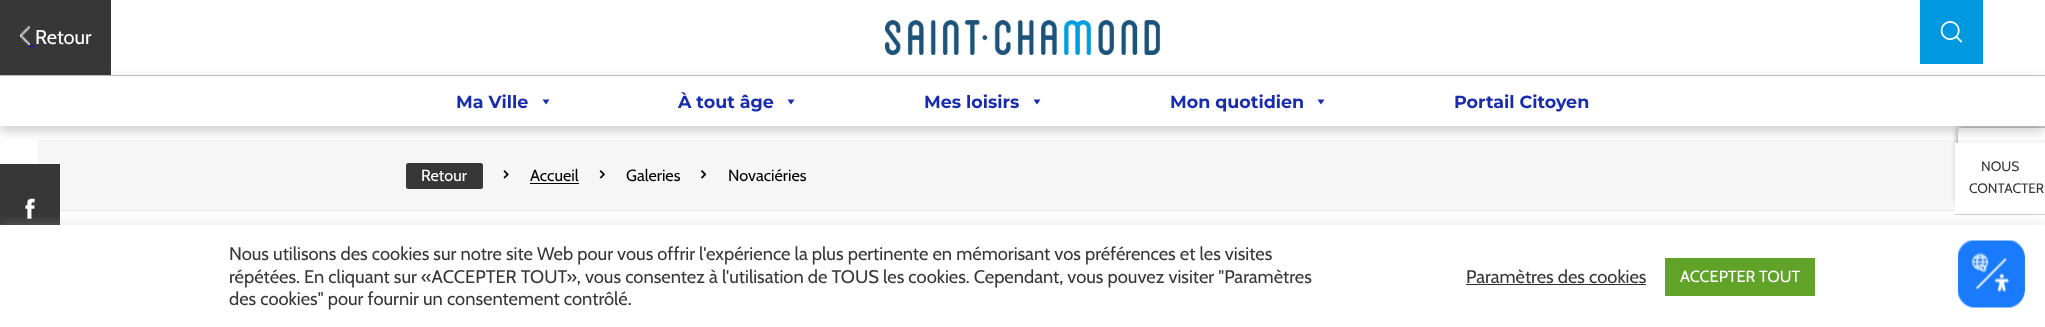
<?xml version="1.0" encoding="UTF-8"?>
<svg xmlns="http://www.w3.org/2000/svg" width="2045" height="327">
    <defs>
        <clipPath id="clip1"><path d="M 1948 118 H 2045 V 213 H 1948 Z M 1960.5 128 H 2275.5 C 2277 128 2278 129 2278 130.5 V 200.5 C 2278 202 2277 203 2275.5 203 H 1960.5 C 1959 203 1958 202 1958 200.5 V 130.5 C 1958 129 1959 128 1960.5 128 Z" clip-rule="evenodd"/></clipPath>
        <filter id="blur1" x="-50%" y="-200%" width="200%" height="500%"><feGaussianBlur stdDeviation="3"/></filter>
        <clipPath id="clip2"><path d="M 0 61 H 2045 V 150 H 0 Z M 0 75 H 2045 V 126 H 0 Z" clip-rule="evenodd"/></clipPath>
        <filter id="blur2" x="-50%" y="-200%" width="200%" height="500%"><feGaussianBlur stdDeviation="6"/></filter>
    </defs>
    <rect width="100%" height="100%" fill="#FFFFFF"/>
    <rect x="38" y="140" width="2007" height="70" fill="#F6F6F6"/>
    <rect x="60" y="210" width="1895" height="1" fill="#E9E9E9"/>
    <g clip-path="url(#clip1)">
        <rect x="1958" y="128" width="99" height="75" rx="2.5" fill="#808080" filter="url(#blur1)"/>
    </g>
    <rect x="1955" y="122" width="90" height="4" fill="#FFFFFF"/>
    <rect x="0" y="0" width="111" height="75" fill="#373737"/>
    <image x="20" y="25" width="10" height="20" href="img_01.png"/>
    <text x="35" y="44" font-family="Cabin" font-size="20" fill="#FFFFFF">Retour</text>
    <rect x="30" y="46" width="5" height="1" fill="#0000EE"/>
    <rect x="1920" y="0" width="63" height="64" fill="#0098DF"/>
    <image x="1940" y="21" width="23" height="22" href="img_02.png"/>
    <image x="885" y="20" width="275" height="35" href="img_03.png"/>
    <rect x="0" y="164" width="60" height="61" fill="#373737"/>
    <image x="25" y="198" width="10" height="21" href="img_04.png"/>
    <g clip-path="url(#clip2)">
        <rect x="0" y="80" width="2045" height="51" fill="#000000" fill-opacity="0.2" filter="url(#blur2)"/>
    </g>
    <rect x="0" y="75" width="2045" height="1" fill="#C0C0C0"/>
    <text x="456" y="108" font-family="Montserrat" font-size="17.5" font-weight="700" fill="#182CB0">Ma Ville</text>
    <path d="M 549.5 99.5 L 546 104.5 L 542.5 99.5 Z" fill="#182CB0"/>
    <text x="678" y="108" font-family="Montserrat" font-size="17.5" font-weight="700" fill="#182CB0">À tout âge</text>
    <path d="M 794.5 99.5 L 791 104.5 L 787.5 99.5 Z" fill="#182CB0"/>
    <text x="924" y="108" font-family="Montserrat" font-size="17.5" font-weight="700" fill="#182CB0">Mes loisirs</text>
    <path d="M 1040.5 99.5 L 1037 104.5 L 1033.5 99.5 Z" fill="#182CB0"/>
    <text x="1170" y="108" font-family="Montserrat" font-size="17.5" font-weight="700" fill="#182CB0">Mon quotidien</text>
    <path d="M 1324.5 99.5 L 1321 104.5 L 1317.5 99.5 Z" fill="#182CB0"/>
    <text x="1454" y="108" font-family="Montserrat" font-size="17.5" font-weight="700" fill="#182CB0">Portail Citoyen</text>
    <rect x="1955" y="143" width="90" height="67" fill="#FFFFFF"/>
    <rect x="1955" y="214" width="90" height="1" fill="#CCCCCC"/>
    <text x="1981" y="171" font-family="Cabin" font-size="13.75" fill="#373737">NOUS</text>
    <text x="1969" y="193" font-family="Cabin" font-size="13.75" fill="#373737">CONTACTER</text>
    <rect x="406" y="163" width="77" height="26" rx="2.5" fill="#373737"/>
    <text x="421" y="181" font-family="Cabin" font-size="16.25" fill="#FFFFFF">Retour</text>
    <image x="503" y="170" width="6" height="9" href="img_05.png"/>
    <text x="530" y="181" font-family="Cabin" font-size="16.25" fill="#000000">Accueil</text>
    <rect x="530" y="183" width="49" height="1" fill="#000000"/>
    <image x="599" y="170" width="6" height="9" href="img_06.png"/>
    <text x="626" y="181" font-family="Cabin" font-size="16.25" fill="#000000">Galeries</text>
    <image x="700" y="170" width="7" height="9" href="img_07.png"/>
    <text x="728" y="181" font-family="Cabin" font-size="16.25" fill="#000000">Novaciéries</text>
    <rect x="0" y="224" width="2045" height="102" fill="#ACABAB" fill-opacity="0.3" filter="url(#blur2)"/>
    <rect x="0" y="225" width="2045" height="102" fill="#FFFFFF"/>
    <text font-family="Cabin" font-size="18.33" fill="#373737">
        <tspan x="229" y="260">Nous utilisons des cookies sur notre site Web pour vous offrir l'expérience la plus pertinente en mémorisant vos préférences et les visites</tspan>
        <tspan x="229" y="283">répétées. En cliquant sur «ACCEPTER TOUT», vous consentez à l'utilisation de TOUS les cookies. Cependant, vous pouvez visiter "Paramètres</tspan>
        <tspan x="229" y="305">des cookies" pour fournir un consentement contrôlé.</tspan>
    </text>
    <text x="1466" y="283" font-family="Cabin" font-size="18.33" fill="#373737">Paramètres des cookies</text>
    <rect x="1466" y="284" width="180" height="1" fill="#333333"/>
    <rect x="1665" y="258" width="150" height="38" fill="#61A229"/>
    <text x="1680" y="282" font-family="Cabin" font-size="16.25" fill="#FFFFFF">ACCEPTER TOUT</text>
    <image x="1958" y="240" width="67" height="68" href="img_08.png"/>
</svg>
